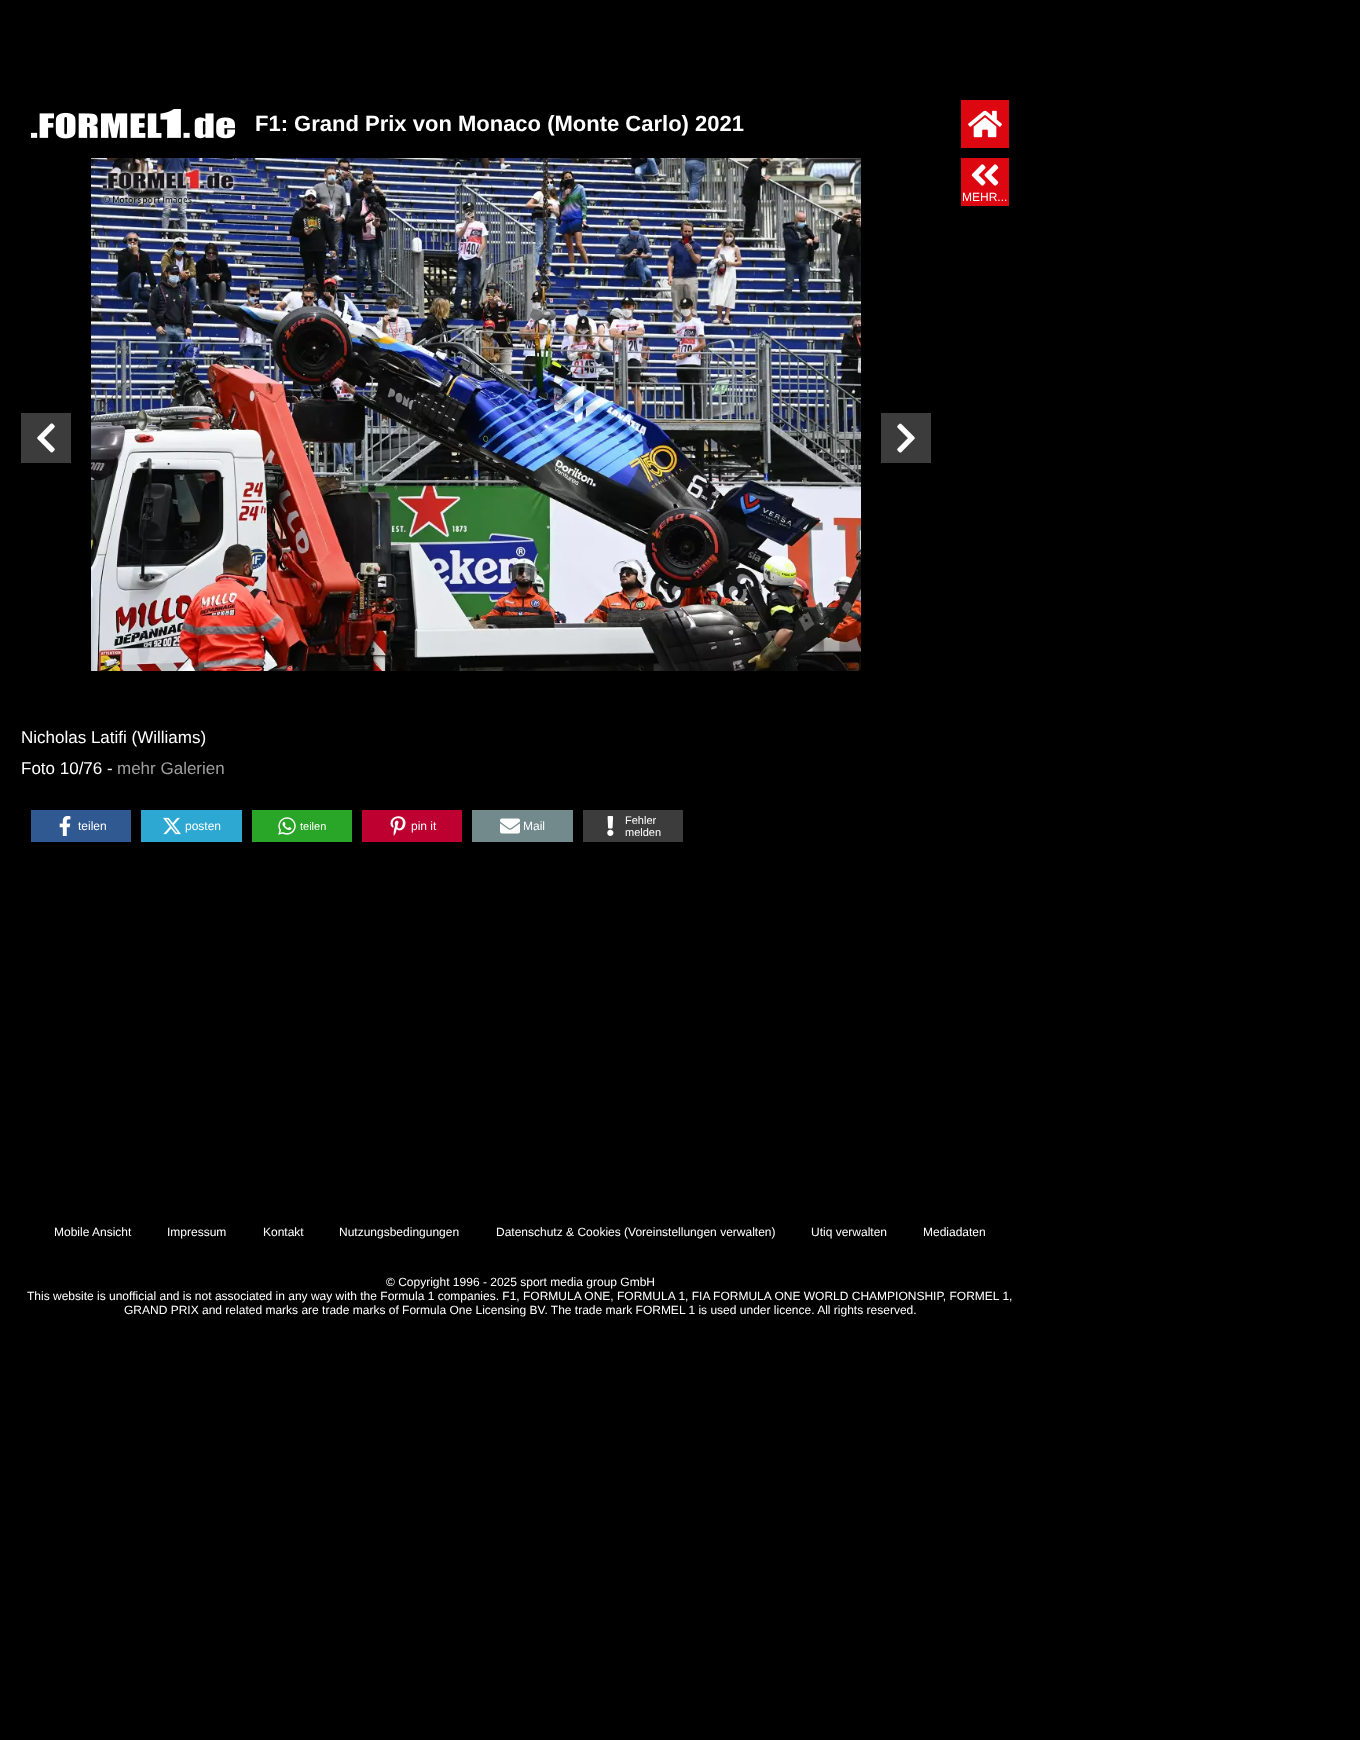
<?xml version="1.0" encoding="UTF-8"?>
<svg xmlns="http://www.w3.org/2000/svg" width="1360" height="1740">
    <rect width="100%" height="100%" fill="#000000"/>
    <image x="31" y="109" width="204" height="30" href="img_01.png"/>
    <text x="255" y="131" font-family="Liberation Sans" font-size="22" font-weight="700" fill="#FFFFFF">F1: Grand Prix von Monaco (Monte Carlo) 2021</text>
    <rect x="961" y="100" width="48" height="48" fill="#DC0711"/>
    <image x="968" y="110" width="34" height="28" href="img_02.png"/>
    <rect x="961" y="158" width="48" height="48" fill="#DC0711"/>
    <image x="971" y="164" width="28" height="22" href="img_03.png"/>
    <text x="962" y="201" font-family="Liberation Sans" font-size="12" fill="#FFFFFF">MEHR...</text>
    <image x="91" y="158" width="770" height="513" href="img_04.png"/>
    <rect x="21" y="413" width="50" height="50" fill="#3C3C3C"/>
    <image x="37" y="423" width="18" height="30" href="img_05.png"/>
    <rect x="881" y="413" width="50" height="50" fill="#3C3C3C"/>
    <image x="897" y="423" width="18" height="30" href="img_06.png"/>
    <text font-family="Liberation Sans" font-size="17" fill="#FFFFFF">
        <tspan x="21" y="743">Nicholas Latifi (Williams)</tspan>
        <tspan x="21" y="774">Foto 10/76 -</tspan>
    </text>
    <text x="117" y="774" font-family="Liberation Sans" font-size="17" fill="#9E9E9E">mehr Galerien</text>
    <rect x="31" y="810" width="100" height="32" fill="#305891"/>
    <image x="59" y="816" width="12" height="20" href="img_07.png"/>
    <text x="78" y="830" font-family="Liberation Sans" font-size="12" fill="#FFFFFF">teilen</text>
    <rect x="141" y="810" width="101" height="32" fill="#2CA8D2"/>
    <image x="163" y="817" width="18" height="18" href="img_08.png"/>
    <text x="185" y="830" font-family="Liberation Sans" font-size="12" fill="#FFFFFF">posten</text>
    <rect x="252" y="810" width="100" height="32" fill="#29A628"/>
    <image x="278" y="817" width="18" height="18" href="img_09.png"/>
    <text x="300" y="830" font-family="Liberation Sans" font-size="11" fill="#FFFFFF">teilen</text>
    <rect x="362" y="810" width="100" height="32" fill="#BD0030"/>
    <image x="390" y="816" width="16" height="20" href="img_10.png"/>
    <text x="411" y="830" font-family="Liberation Sans" font-size="12" fill="#FFFFFF">pin it</text>
    <rect x="472" y="810" width="101" height="32" fill="#738A8D"/>
    <image x="500" y="818" width="20" height="16" href="img_11.png"/>
    <text x="523" y="830" font-family="Liberation Sans" font-size="12" fill="#FFFFFF">Mail</text>
    <rect x="583" y="810" width="100" height="32" fill="#3C3C3C"/>
    <image x="607" y="816" width="7" height="20" href="img_12.png"/>
    <text font-family="Liberation Sans" font-size="11" fill="#FFFFFF">
        <tspan x="625" y="824">Fehler</tspan>
        <tspan x="625" y="836">melden</tspan>
    </text>
    <text x="54" y="1236" font-family="Liberation Sans" font-size="12" fill="#FFFFFF">Mobile Ansicht</text>
    <text x="167" y="1236" font-family="Liberation Sans" font-size="12" fill="#FFFFFF">Impressum</text>
    <text x="263" y="1236" font-family="Liberation Sans" font-size="12" fill="#FFFFFF">Kontakt</text>
    <text x="339" y="1236" font-family="Liberation Sans" font-size="12" fill="#FFFFFF">Nutzungsbedingungen</text>
    <text x="496" y="1236" font-family="Liberation Sans" font-size="12" fill="#FFFFFF">Datenschutz &amp; Cookies (Voreinstellungen verwalten)</text>
    <text x="811" y="1236" font-family="Liberation Sans" font-size="12" fill="#FFFFFF">Utiq verwalten</text>
    <text x="923" y="1236" font-family="Liberation Sans" font-size="12" fill="#FFFFFF">Mediadaten</text>
    <text x="386" y="1286" font-family="Liberation Sans" font-size="12" fill="#FFFFFF">© Copyright 1‌996 - ‌2025 sport media group GmbH</text>
    <text x="27" y="1300" font-family="Liberation Sans" font-size="12" fill="#FFFFFF">This website is unofficial and is not associated in any way with the Formula 1 companies. F1, FORMULA ONE, FORMULA 1, FIA FORMULA ONE WORLD CHAMPIONSHIP, FORMEL 1,</text>
    <text x="124" y="1314" font-family="Liberation Sans" font-size="12" fill="#FFFFFF">GRAND PRIX and related marks are trade marks of Formula One Licensing BV. The trade mark FORMEL 1 is used under licence. All rights reserved.</text>
</svg>
